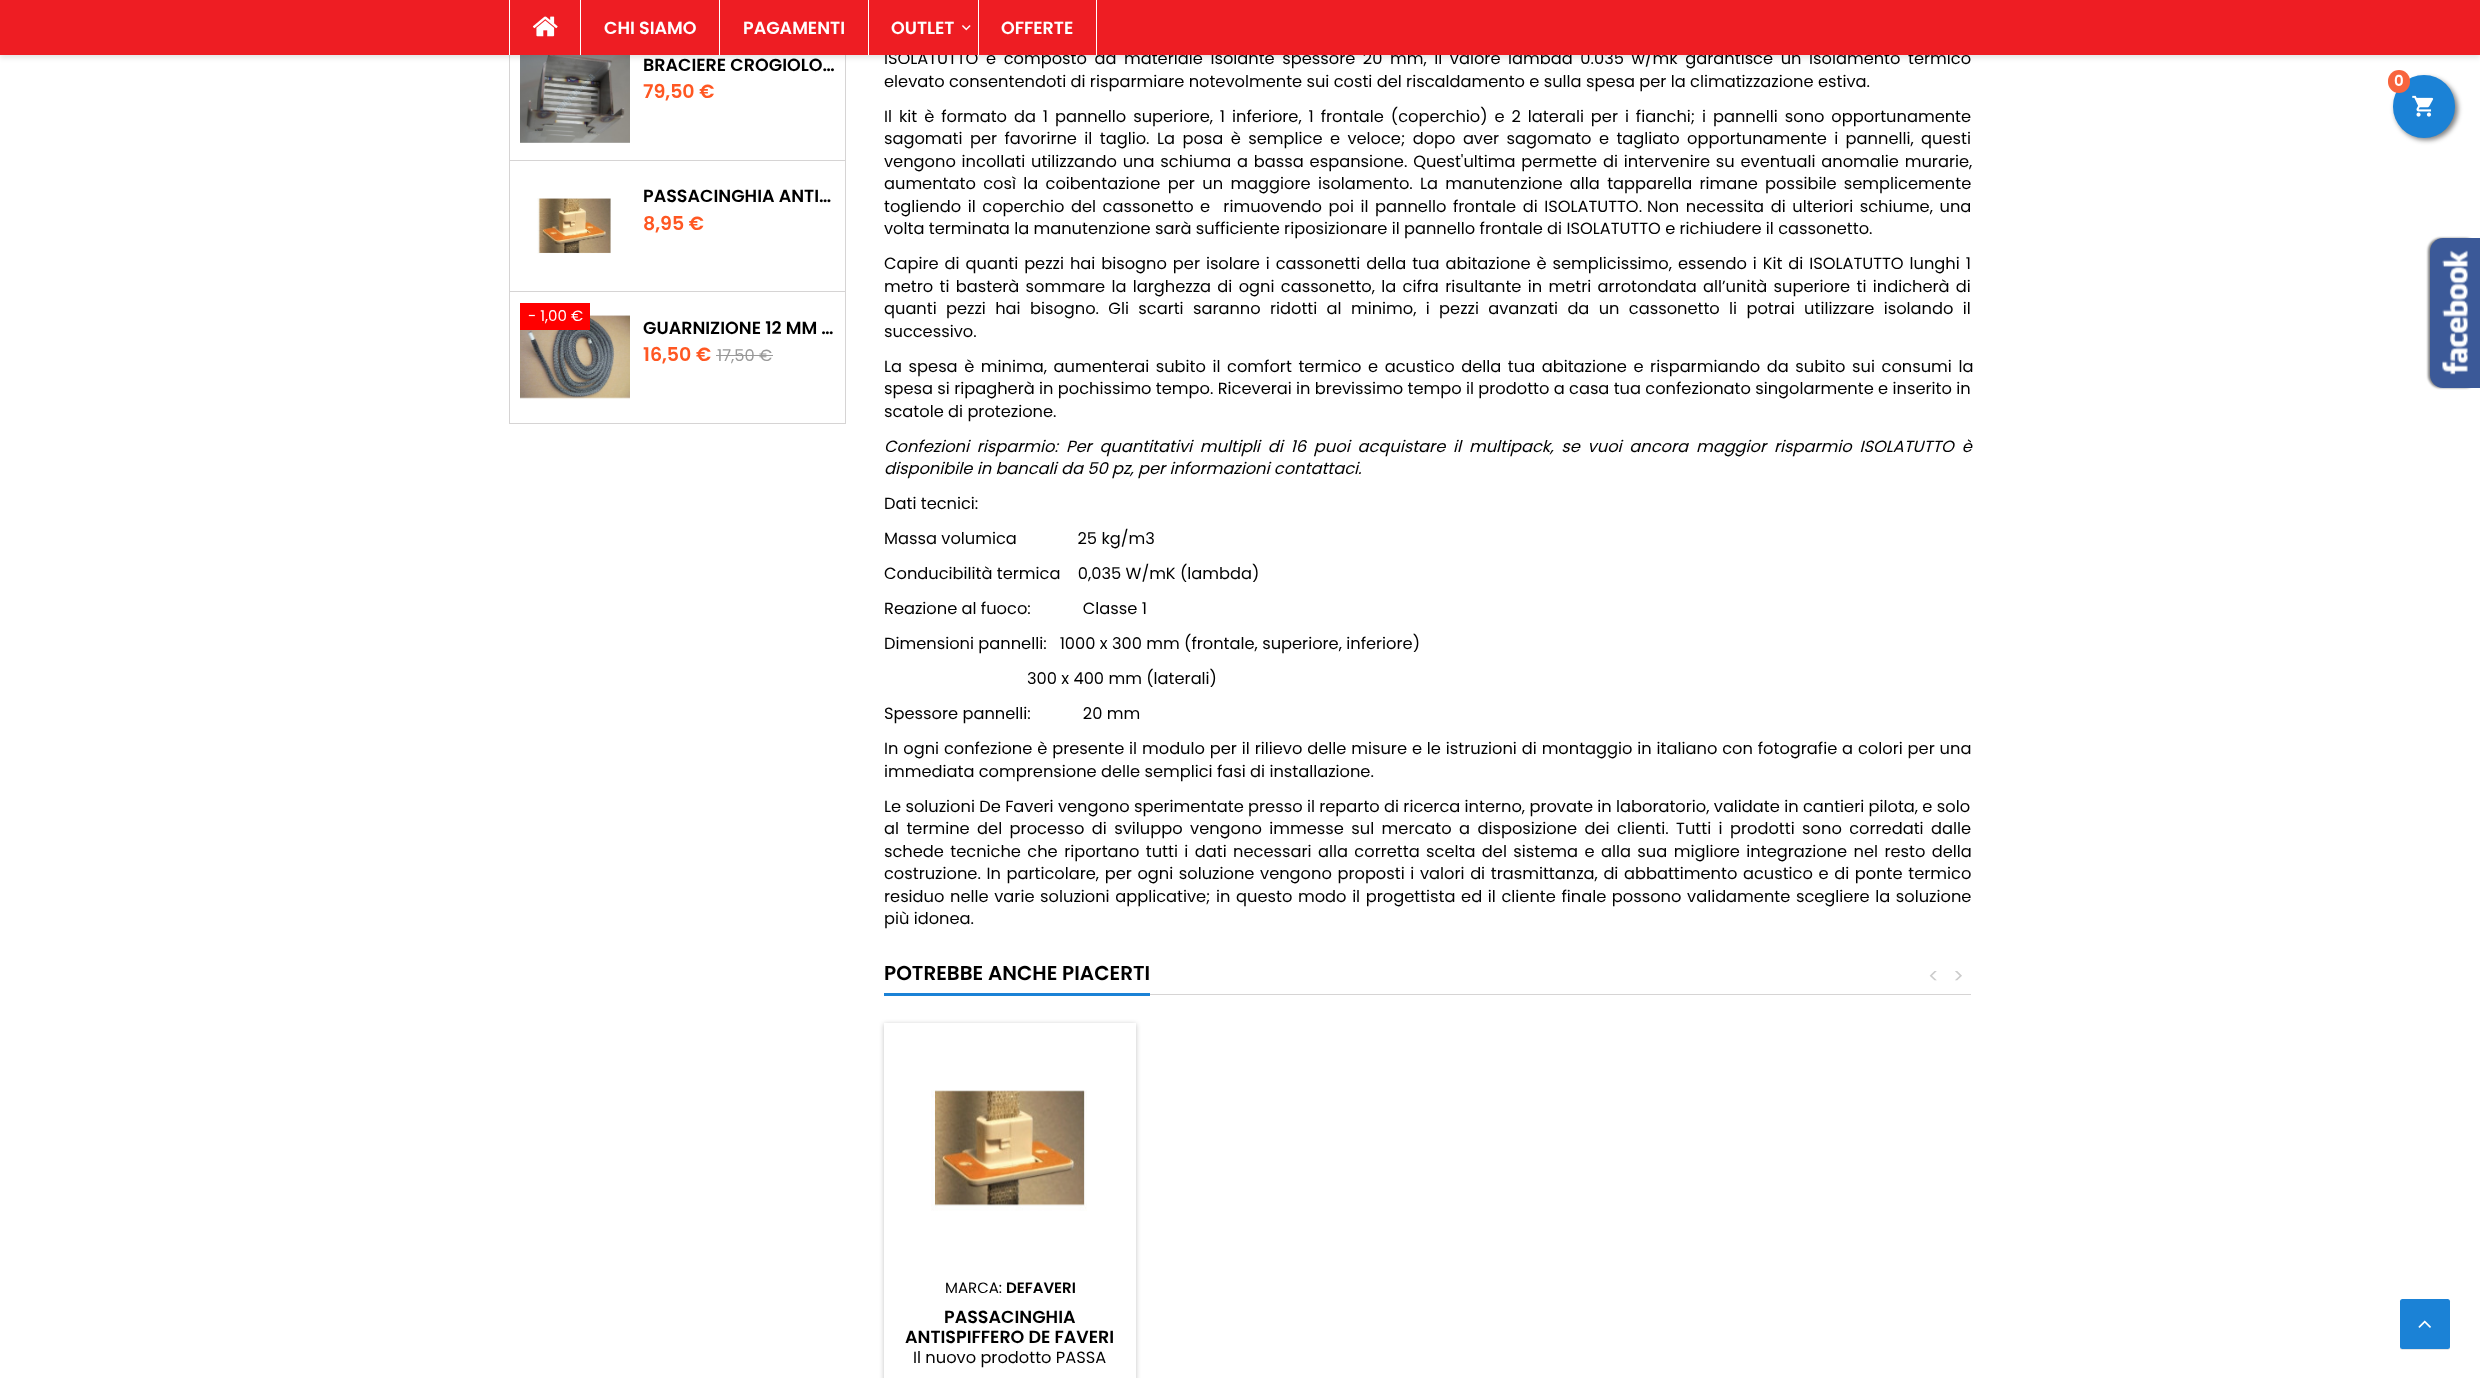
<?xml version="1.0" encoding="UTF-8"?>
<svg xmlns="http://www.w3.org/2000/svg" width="2480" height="1378">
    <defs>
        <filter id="blur1" x="-50%" y="-200%" width="200%" height="500%"><feGaussianBlur stdDeviation="2.5"/></filter>
        <clipPath id="clip1"><path d="M 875 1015 H 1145 V 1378 H 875 Z M 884 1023 H 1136 V 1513 H 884 Z" clip-rule="evenodd"/></clipPath>
        <filter id="blur2" x="-50%" y="-200%" width="200%" height="500%"><feGaussianBlur stdDeviation="1"/></filter>
        <filter id="blur3" x="-50%" y="-200%" width="200%" height="500%"><feGaussianBlur stdDeviation="0.5"/></filter>
    </defs>
    <rect width="100%" height="100%" fill="#FFFFFF"/>
    <rect x="845" y="55" width="1" height="369" fill="#D6D4D4"/>
    <rect x="509" y="160" width="337" height="1" fill="#D6D4D4"/>
    <rect x="509" y="55" width="1" height="106" fill="#D6D4D4"/>
    <image x="520" y="55" width="110" height="88" href="img_04.png"/>
    <rect x="0" y="3" width="2480" height="55" fill="#000000" fill-opacity="0.1" filter="url(#blur1)"/>
    <text x="884" y="64" word-spacing="3.25" font-family="Poppins" font-size="16.25" fill="#000000">ISOLATUTTO è composto da materiale isolante spessore 20 mm, il valore lambda 0.035 w/mk garantisce un isolamento termico</text>
    <rect x="0" y="0" width="2480" height="55" fill="#EE1D23"/>
    <rect x="509" y="0" width="1" height="55" fill="#FFFFFF"/>
    <image x="532" y="16" width="26" height="21" href="img_01.png"/>
    <rect x="580" y="0" width="1" height="55" fill="#FFFFFF"/>
    <text x="604" y="34" font-family="Poppins" font-size="17.5" font-weight="600" fill="#FFFFFF">CHI SIAMO</text>
    <rect x="719" y="0" width="1" height="55" fill="#FFFFFF"/>
    <text x="743" y="34" font-family="Poppins" font-size="17.5" font-weight="600" fill="#FFFFFF">PAGAMENTI</text>
    <rect x="868" y="0" width="1" height="55" fill="#FFFFFF"/>
    <text x="891" y="34" font-family="Poppins" font-size="17.5" font-weight="600" fill="#FFFFFF">OUTLET</text>
    <image x="962" y="25" width="9" height="6" href="img_02.png"/>
    <rect x="1096" y="0" width="1" height="55" fill="#FFFFFF"/>
    <rect x="978" y="0" width="1" height="55" fill="#FFFFFF"/>
    <text x="1001" y="34" font-family="Poppins" font-size="17.5" font-weight="600" fill="#FFFFFF">OFFERTE</text>
    <rect x="2395" y="78" width="63" height="62" rx="31" fill="#000000" fill-opacity="0.5" filter="url(#blur1)"/>
    <rect x="2393" y="75" width="62" height="63" rx="31" fill="#1B82D6"/>
    <rect x="2388" y="70" width="22" height="23" rx="11" fill="#F8653D"/>
    <text x="2394" y="86" font-family="Poppins" font-size="15" font-weight="600" fill="#FFFFFF">0</text>
    <image x="2412" y="95" width="22" height="22" href="img_03.png"/>
    <text x="643" y="71" font-family="Poppins" font-size="17.5" font-weight="600" fill="#000000">BRACIERE CROGIOLO…</text>
    <text x="643" y="98" font-family="Poppins" font-size="19" font-weight="600" fill="#FF5722">79,50 €</text>
    <rect x="509" y="291" width="337" height="1" fill="#D6D4D4"/>
    <rect x="509" y="161" width="1" height="132" fill="#D6D4D4"/>
    <image x="537" y="198" width="74" height="56" href="img_05.png"/>
    <text x="643" y="202" font-family="Poppins" font-size="17.5" font-weight="600" fill="#000000">PASSACINGHIA ANTI…</text>
    <text x="643" y="230" font-family="Poppins" font-size="19" font-weight="600" fill="#FF5722">8,95 €</text>
    <rect x="509" y="423" width="337" height="1" fill="#D6D4D4"/>
    <rect x="509" y="293" width="1" height="131" fill="#D6D4D4"/>
    <image x="520" y="315" width="110" height="85" href="img_06.png"/>
    <rect x="520" y="303" width="70" height="27" fill="#FF0000"/>
    <text x="528" y="321" font-family="Poppins" font-size="15" fill="#FFFFFF">- 1,00 €</text>
    <text x="643" y="334" font-family="Poppins" font-size="17.5" font-weight="600" fill="#000000">GUARNIZIONE 12 MM …</text>
    <text x="643" y="361" font-family="Poppins" font-size="19" font-weight="600" fill="#FF5722">16,50 €</text>
    <text x="717" y="361" font-family="Poppins" font-size="16.25" fill="#999999">17,50 €</text>
    <rect x="716" y="355" width="57" height="1" fill="#999999"/>
    <text x="884" y="87" font-family="Poppins" font-size="16.25" fill="#000000">elevato consentendoti di risparmiare notevolmente sui costi del riscaldamento e sulla spesa per la climatizzazione estiva.</text>
    <text font-family="Poppins" font-size="16.25" fill="#000000">
        <tspan x="884" y="122" word-spacing="2.6">Il kit è formato da 1 pannello superiore, 1 inferiore, 1 frontale (coperchio) e 2 laterali per i fianchi; i pannelli sono opportunamente</tspan>
        <tspan x="884" y="144" word-spacing="3.1">sagomati per favorirne il taglio.</tspan>
    </text>
    <text x="1157" y="144" word-spacing="3.1" font-family="Poppins" font-size="16.25" fill="#000000">La posa è semplice e veloce; dopo aver sagomato e tagliato opportunamente i pannelli, questi</text>
    <text font-family="Poppins" font-size="16.25" fill="#000000">
        <tspan x="884" y="167" word-spacing="1.5">vengono incollati utilizzando una schiuma a bassa espansione. Quest'ultima permette di intervenire su eventuali anomalie murarie,</tspan>
        <tspan x="884" y="189" word-spacing="3">aumentato così la coibentazione per un maggiore isolamento.</tspan>
    </text>
    <text x="1420" y="189" word-spacing="3" font-family="Poppins" font-size="16.25" fill="#000000">La manutenzione alla tapparella rimane possibile semplicemente</text>
    <text x="884" y="212" word-spacing="2.25" font-family="Poppins" font-size="16.25" fill="#000000" xml:space="preserve">togliendo il coperchio del cassonetto e  rimuovendo poi il pannello frontale di ISOLATUTTO.</text>
    <text x="1647" y="212" word-spacing="2.25" font-family="Poppins" font-size="16.25" fill="#000000">Non necessita di ulteriori schiume, una</text>
    <text x="884" y="234" font-family="Poppins" font-size="16.25" fill="#000000">volta terminata la manutenzione sarà sufficiente riposizionare il pannello frontale di ISOLATUTTO e richiudere il cassonetto.</text>
    <text font-family="Poppins" font-size="16.25" fill="#000000">
        <tspan x="884" y="269" word-spacing="1.6">Capire di quanti pezzi hai bisogno per isolare i cassonetti della tua abitazione è semplicissimo, essendo i Kit di ISOLATUTTO lunghi 1</tspan>
        <tspan x="884" y="292" word-spacing="2">metro ti basterà sommare la larghezza di ogni cassonetto, la cifra risultante in metri arrotondata all’unità superiore ti indicherà di</tspan>
        <tspan x="884" y="314" word-spacing="5">quanti pezzi hai bisogno. Gli scarti saranno ridotti al minimo, i pezzi avanzati da un cassonetto li potrai utilizzare isolando il</tspan>
        <tspan x="884" y="337">successivo.</tspan>
    </text>
    <text font-family="Poppins" font-size="16.25" fill="#000000">
        <tspan x="884" y="372" word-spacing="2.25">La spesa è minima, aumenterai subito il comfort termico e acustico della tua abitazione e risparmiando da subito sui consumi la</tspan>
        <tspan x="884" y="394">spesa si ripagherà in pochissimo tempo. Riceverai in brevissimo tempo il prodotto a casa tua confezionato singolarmente e inserito in</tspan>
        <tspan x="884" y="417">scatole di protezione.</tspan>
    </text>
    <text x="884" y="452" word-spacing="3.5" font-family="Poppins" font-size="16.25" font-style="italic" fill="#000000">Confezioni risparmio:</text>
    <text x="1066" y="452" word-spacing="3.5" font-family="Poppins" font-size="16.25" font-style="italic" fill="#000000">Per quantitativi multipli di 16 puoi acquistare il multipack, se vuoi ancora maggior risparmio ISOLATUTTO è</text>
    <text x="884" y="474" font-family="Poppins" font-size="16.25" font-style="italic" fill="#000000">disponibile in bancali da 50 pz, per informazioni contattaci.</text>
    <text x="884" y="509" font-family="Poppins" font-size="16.25" fill="#000000">Dati tecnici:</text>
    <text x="884" y="544" font-family="Poppins" font-size="16.25" fill="#000000" xml:space="preserve">Massa volumica              25 kg/m3</text>
    <text x="884" y="579" font-family="Poppins" font-size="16.25" fill="#000000" xml:space="preserve">Conducibilità termica    0,035 W/mK (lambda)</text>
    <text x="884" y="614" font-family="Poppins" font-size="16.25" fill="#000000" xml:space="preserve">Reazione al fuoco:            Classe 1</text>
    <text x="884" y="649" font-family="Poppins" font-size="16.25" fill="#000000" xml:space="preserve">Dimensioni pannelli:   1000 x 300 mm (frontale, superiore, inferiore)</text>
    <text x="1027" y="684" font-family="Poppins" font-size="16.25" fill="#000000">300 x 400 mm (laterali)</text>
    <text x="884" y="719" font-family="Poppins" font-size="16.25" fill="#000000" xml:space="preserve">Spessore pannelli:            20 mm</text>
    <text font-family="Poppins" font-size="16.25" fill="#000000">
        <tspan x="884" y="754" word-spacing="0.55">In ogni confezione è presente il modulo per il rilievo delle misure e le istruzioni di montaggio in italiano con fotografie a colori per una</tspan>
        <tspan x="884" y="777">immediata comprensione delle semplici fasi di installazione.</tspan>
    </text>
    <text font-family="Poppins" font-size="16.25" fill="#000000">
        <tspan x="884" y="812">Le soluzioni De Faveri vengono sperimentate presso il reparto di ricerca interno, provate in laboratorio, validate in cantieri pilota, e solo</tspan>
        <tspan x="884" y="834" word-spacing="3.1">al termine del processo di sviluppo vengono immesse sul mercato a disposizione dei clienti. Tutti i prodotti sono corredati dalle</tspan>
        <tspan x="884" y="857" word-spacing="2.1">schede tecniche che riportano tutti i dati necessari alla corretta scelta del sistema e alla sua migliore integrazione nel resto della</tspan>
        <tspan x="884" y="879" word-spacing="1.3">costruzione. In particolare, per ogni soluzione vengono proposti i valori di trasmittanza, di abbattimento acustico e di ponte termico</tspan>
        <tspan x="884" y="902" word-spacing="1.3">residuo nelle varie soluzioni applicative; in questo modo il progettista ed il cliente finale possono validamente scegliere la soluzione</tspan>
        <tspan x="884" y="924">più idonea.</tspan>
    </text>
    <rect x="1150" y="994" width="821" height="1" fill="#D6D4D4"/>
    <rect x="884" y="993" width="266" height="3" fill="#1B82D6"/>
    <text x="884" y="980" font-family="Poppins" font-size="20" font-weight="600" fill="#000000">POTREBBE ANCHE PIACERTI</text>
    <text x="1928" y="983" font-family="Poppins" font-size="20" fill="#CCCCCC">&lt;</text>
    <text x="1953" y="983" font-family="Poppins" font-size="20" fill="#CCCCCC">&gt;</text>
    <g clip-path="url(#clip1)">
        <rect x="884" y="1024" width="252" height="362" fill="#000000" fill-opacity="0.24" filter="url(#blur1)"/>
    </g>
    <image x="931" y="1090" width="156" height="121" href="img_07.png"/>
    <text x="945" y="1293" font-family="Poppins" font-size="15" fill="#000000">MARCA:</text>
    <text x="1006" y="1293" font-family="Poppins" font-size="15" font-weight="600" fill="#000000">DEFAVERI</text>
    <text x="944" y="1323" font-family="Poppins" font-size="17.5" font-weight="600" fill="#000000">PASSACINGHIA</text>
    <text x="905" y="1343" font-family="Poppins" font-size="17.5" font-weight="600" fill="#000000">ANTISPIFFERO DE FAVERI</text>
    <text x="913" y="1363" font-family="Poppins" font-size="16.25" fill="#000000">Il nuovo prodotto PASSA</text>
    <rect x="2428" y="238" width="50" height="150" rx="13" fill="#000000" fill-opacity="0.5" filter="url(#blur2)"/>
    <path d="M 2443 238 H 2480 V 388 H 2443 C 2436 388 2430 382 2430 375 V 251 C 2430 244 2436 238 2443 238 Z" fill="#3B5998"/>
    <image x="2442" y="250" width="26" height="125" href="img_08.png"/>
    <rect x="2400" y="1300" width="50" height="50" rx="2.5" fill="#000000" fill-opacity="0.1" filter="url(#blur3)"/>
    <rect x="2400" y="1299" width="50" height="50" rx="2.5" fill="#1B82D6"/>
    <image x="2418" y="1320" width="13" height="8" href="img_09.png"/>
</svg>
